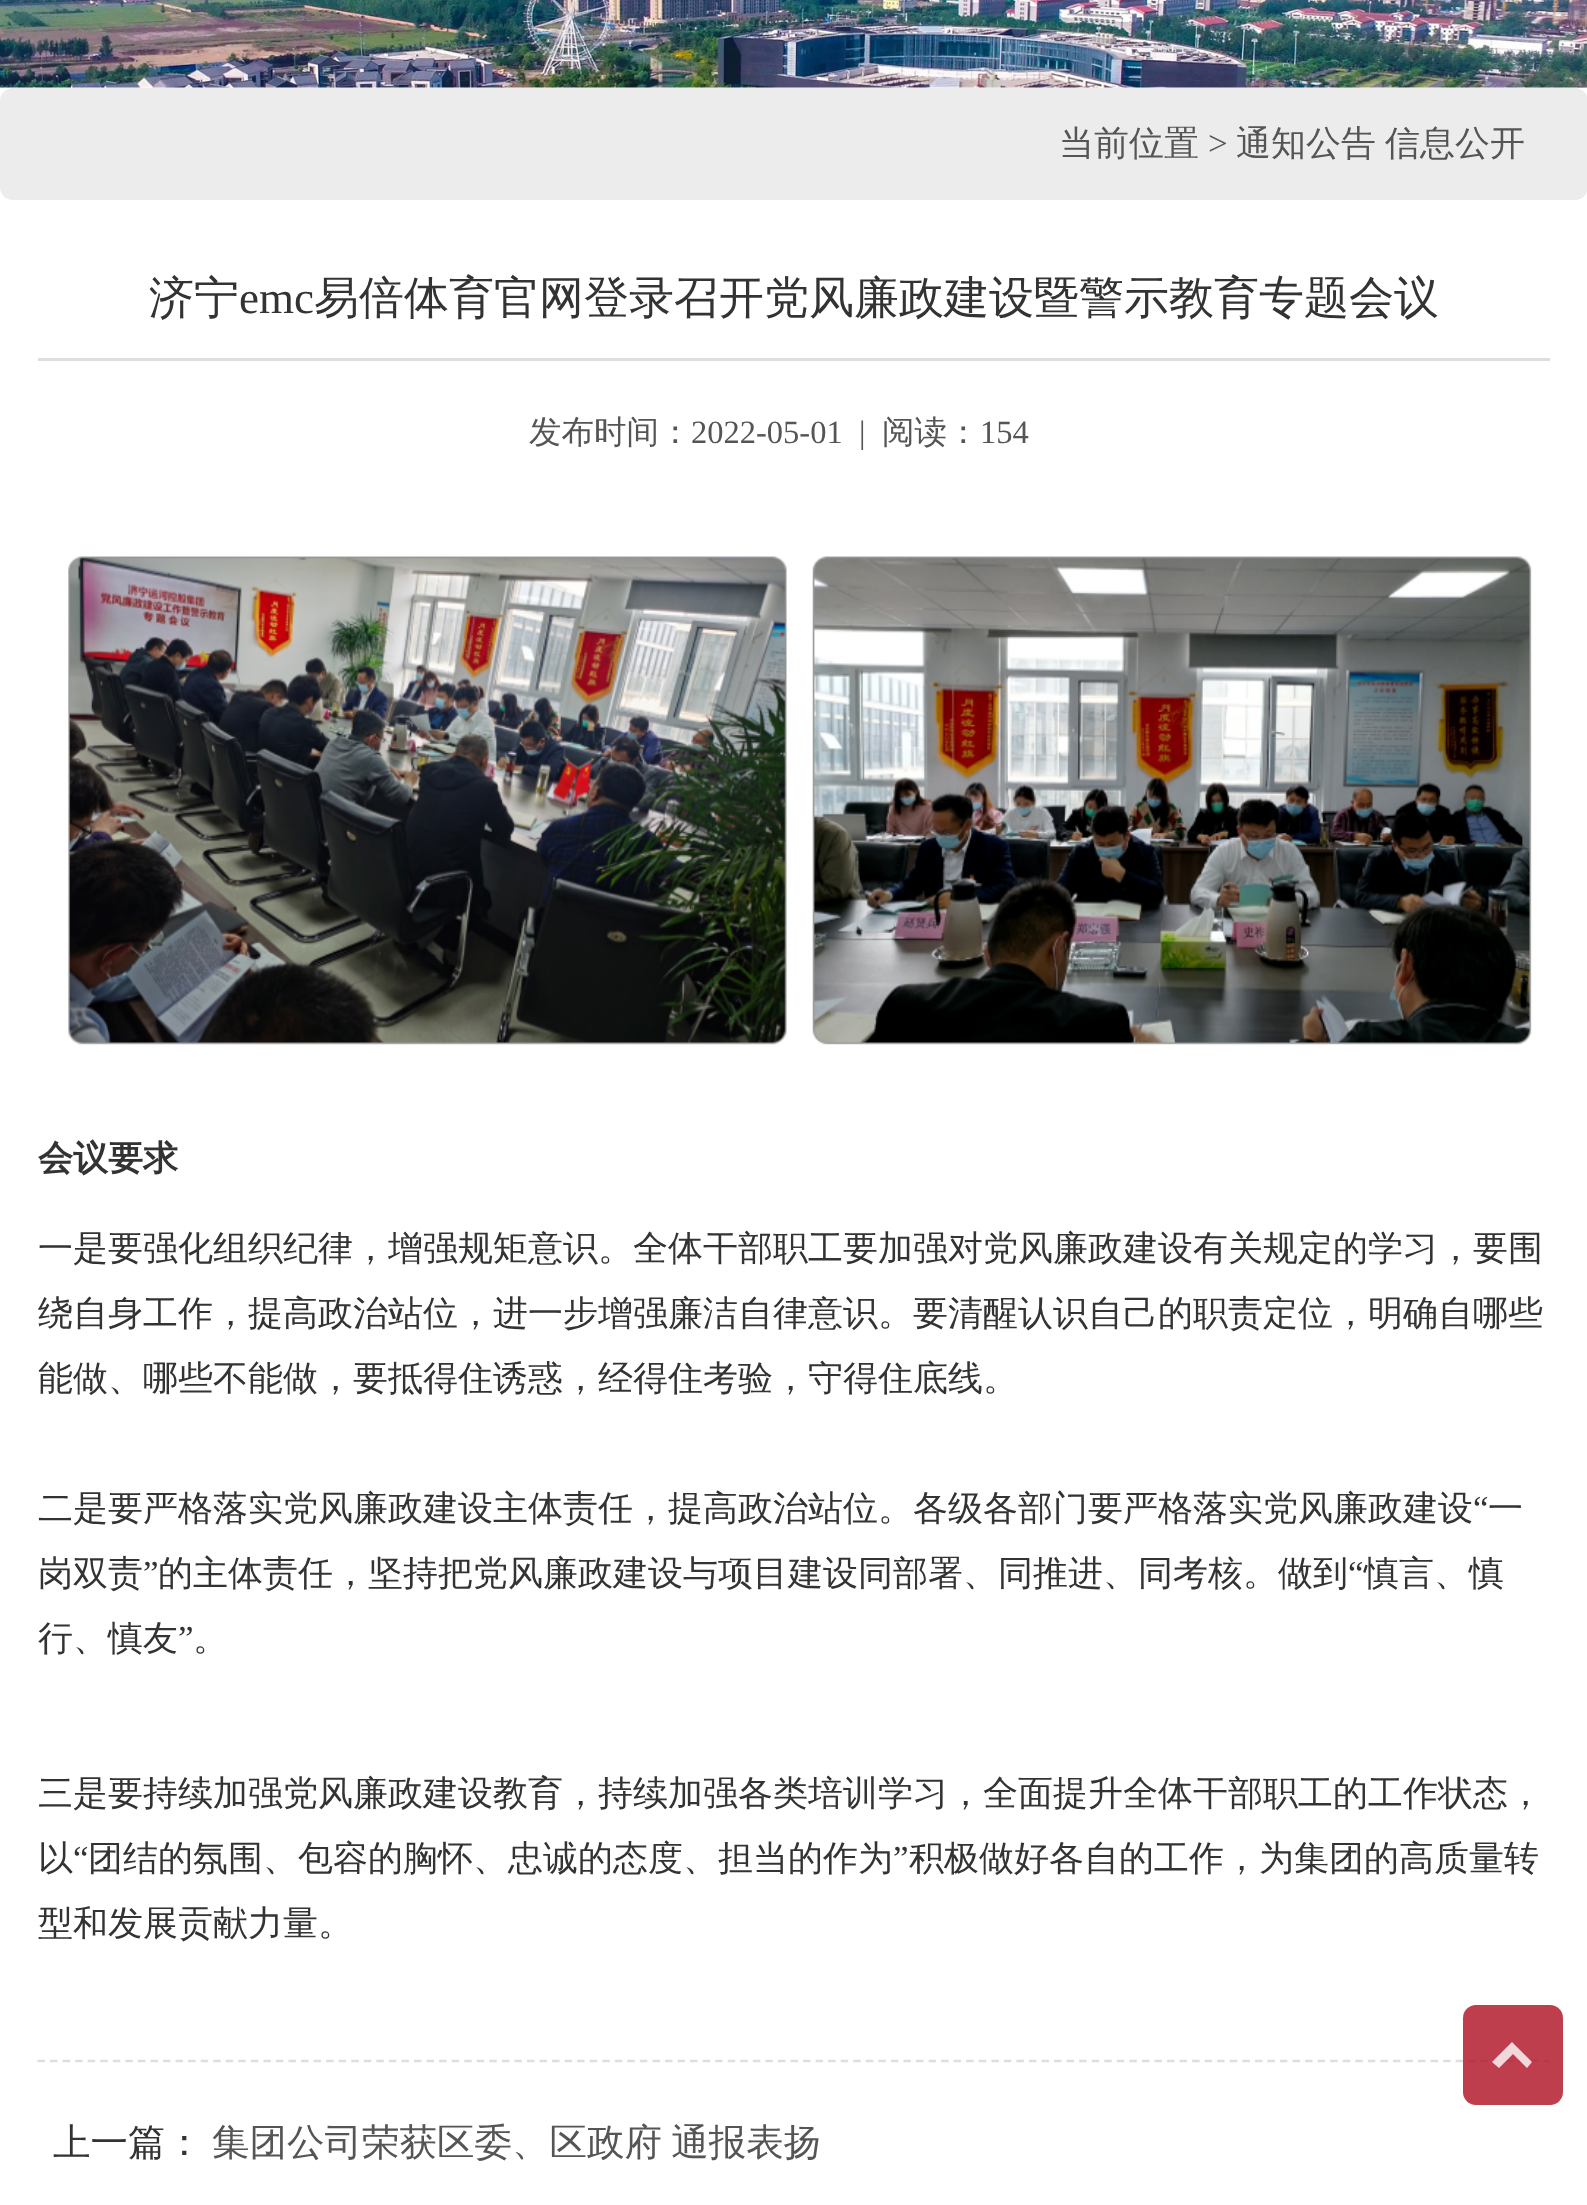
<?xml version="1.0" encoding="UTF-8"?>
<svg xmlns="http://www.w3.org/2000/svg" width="1587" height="2205">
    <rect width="100%" height="100%" fill="#F2FCFF"/>
    <image x="0" y="0" width="1587" height="88" href="img_01.png"/>
    <rect x="0" y="88" width="1587" height="2117" fill="#FFFFFF"/>
    <rect x="0" y="88" width="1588" height="112" rx="13" fill="#ECECEC"/>
    <text x="1059" y="155" font-family="WenQuanYi Zen Hei" font-size="35" font-weight="500" fill="#555555">当前位置</text>
    <text x="1208" y="155" font-family="Liberation Serif" font-size="35" fill="#555555">&gt;</text>
    <text x="1236" y="155" font-family="WenQuanYi Zen Hei" font-size="35" font-weight="500" fill="#555555">通知公告</text>
    <text x="1385" y="155" font-family="WenQuanYi Zen Hei" font-size="35" font-weight="500" fill="#555555">信息公开</text>
    <rect x="38" y="358" width="1512" height="3" fill="#DEDEDE"/>
    <text x="149" y="313" font-family="WenQuanYi Zen Hei" font-size="45" font-weight="500" fill="#333333">济宁</text>
    <text x="239" y="313" font-family="Liberation Serif" font-size="45" fill="#333333">emc</text>
    <text x="314" y="313" font-family="WenQuanYi Zen Hei" font-size="45" font-weight="500" fill="#333333">易倍体育官网登录召开党风廉政建设暨警示教育专题会议</text>
    <text x="529" y="443" font-family="WenQuanYi Zen Hei" font-size="32.5" font-weight="500" fill="#555555">发布时间：</text>
    <text x="691" y="443" font-family="Liberation Serif" font-size="32.5" fill="#555555" xml:space="preserve">2022-05-01  |</text>
    <text x="882" y="443" font-family="WenQuanYi Zen Hei" font-size="32.5" font-weight="500" fill="#555555">阅读：</text>
    <text x="980" y="443" font-family="Liberation Serif" font-size="32.5" fill="#555555">154</text>
    <image x="68" y="556" width="1464" height="489" href="img_02.png"/>
    <text x="38" y="1170" font-family="WenQuanYi Zen Hei" font-size="35" font-weight="700" fill="#333333">会议要求</text>
    <text font-family="WenQuanYi Zen Hei" font-size="35" font-weight="500" fill="#333333">
        <tspan x="38" y="1260">一是要强化组织纪律，增强规矩意识。全体干部职工要加强对党风廉政建设有关规定的学习，要围</tspan>
        <tspan x="38" y="1325">绕自身工作，提高政治站位，进一步增强廉洁自律意识。要清醒认识自己的职责定位，明确自哪些</tspan>
        <tspan x="38" y="1390">能做、哪些不能做，要抵得住诱惑，经得住考验，守得住底线。</tspan>
    </text>
    <text x="38" y="1520" font-family="WenQuanYi Zen Hei" font-size="35" font-weight="500" fill="#333333">二是要严格落实党风廉政建设主体责任，提高政治站位。各级各部门要严格落实党风廉政建设</text>
    <text x="1473" y="1520" font-family="Liberation Serif" font-size="35" fill="#333333">“</text>
    <text x="1488" y="1520" font-family="WenQuanYi Zen Hei" font-size="35" font-weight="500" fill="#333333">一</text>
    <text x="38" y="1585" font-family="WenQuanYi Zen Hei" font-size="35" font-weight="500" fill="#333333">岗双责</text>
    <text x="143" y="1585" font-family="Liberation Serif" font-size="35" fill="#333333">”</text>
    <text x="158" y="1585" font-family="WenQuanYi Zen Hei" font-size="35" font-weight="500" fill="#333333">的主体责任，坚持把党风廉政建设与项目建设同部署、同推进、同考核。做到</text>
    <text x="1348" y="1585" font-family="Liberation Serif" font-size="35" fill="#333333">“</text>
    <text x="1364" y="1585" font-family="WenQuanYi Zen Hei" font-size="35" font-weight="500" fill="#333333">慎言、慎</text>
    <text x="38" y="1650" font-family="WenQuanYi Zen Hei" font-size="35" font-weight="500" fill="#333333">行、慎友</text>
    <text x="178" y="1650" font-family="Liberation Serif" font-size="35" fill="#333333">”</text>
    <text x="193" y="1650" font-family="WenQuanYi Zen Hei" font-size="35" font-weight="500" fill="#333333">。</text>
    <text font-family="WenQuanYi Zen Hei" font-size="35" font-weight="500" fill="#333333">
        <tspan x="38" y="1805">三是要持续加强党风廉政建设教育，持续加强各类培训学习，全面提升全体干部职工的工作状态，</tspan>
        <tspan x="38" y="1870">以</tspan>
    </text>
    <text x="73" y="1870" font-family="Liberation Serif" font-size="35" fill="#333333">“</text>
    <text x="88" y="1870" font-family="WenQuanYi Zen Hei" font-size="35" font-weight="500" fill="#333333">团结的氛围、包容的胸怀、忠诚的态度、担当的作为</text>
    <text x="893" y="1870" font-family="Liberation Serif" font-size="35" fill="#333333">”</text>
    <text x="909" y="1870" font-family="WenQuanYi Zen Hei" font-size="35" font-weight="500" fill="#333333">积极做好各自的工作，为集团的高质量转</text>
    <text x="38" y="1935" font-family="WenQuanYi Zen Hei" font-size="35" font-weight="500" fill="#333333">型和发展贡献力量。</text>
    <path d="M 37.5 2061 H 1550" fill="none" stroke="#DEDEDE" stroke-width="2.5" stroke-dasharray="7.5 5.05"/>
    <text x="53" y="2155" font-family="WenQuanYi Zen Hei" font-size="37.5" font-weight="500" fill="#333333">上一篇：</text>
    <text x="212" y="2155" word-spacing="-2" font-family="WenQuanYi Zen Hei" font-size="37.5" font-weight="500" fill="#555555">集团公司荣获区委、区政府 通报表扬</text>
    <rect x="1463" y="2005" width="100" height="100" rx="13" fill="#AF0E22" fill-opacity="0.8"/>
    <path d="M 1512 2042 L 1532 2062 L 1527 2068 L 1513 2054 L 1499 2068 L 1492 2062 Z" fill="#FFFFFF" fill-opacity="0.8"/>
</svg>
